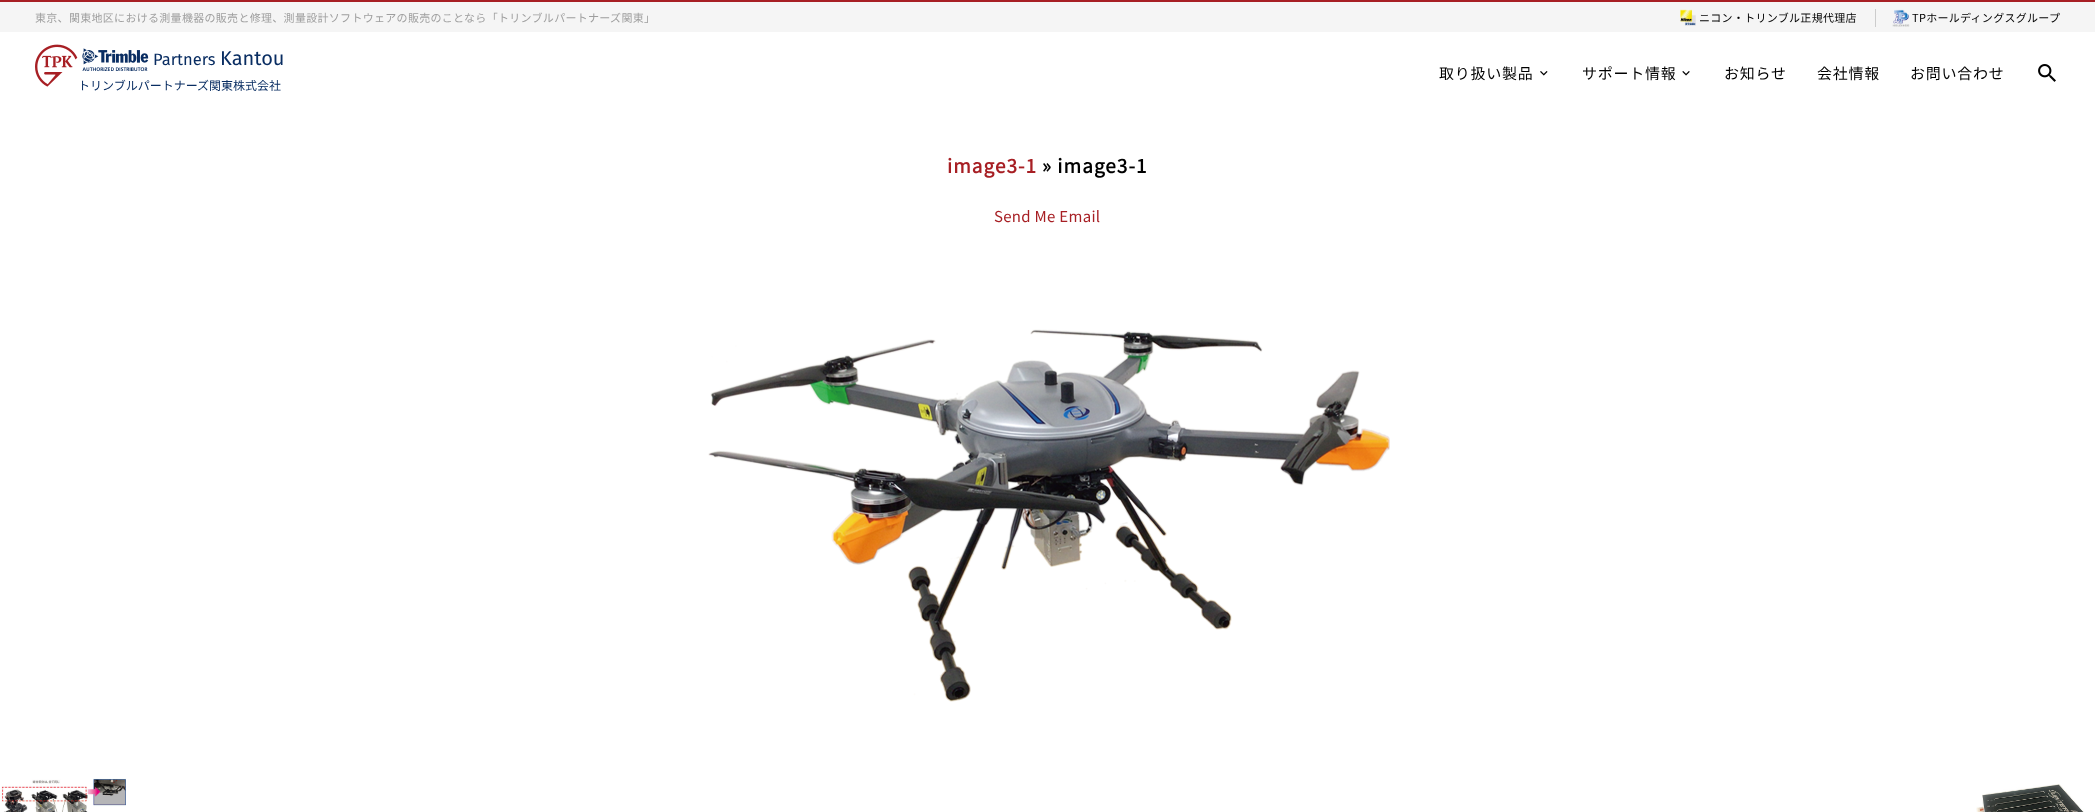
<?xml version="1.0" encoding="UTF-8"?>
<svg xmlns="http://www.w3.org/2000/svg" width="2095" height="812">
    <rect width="100%" height="100%" fill="#FFFFFF"/>
    <rect x="0" y="0" width="2095" height="2" fill="#A71F24"/>
    <rect x="0" y="2" width="2095" height="30" fill="#F5F5F5"/>
    <text x="35" y="22" font-family="Noto Sans JP" font-size="11" letter-spacing="0.3" fill="#9E9E9E">東京、関東地区における測量機器の販売と修理、測量設計ソフトウェアの販売のことなら「トリンブルパートナーズ関東」</text>
    <image x="1680" y="9" width="16" height="17" href="img_01.png"/>
    <text x="1699" y="22" font-family="Noto Sans JP" font-size="11" letter-spacing="0.3" fill="#000000">ニコン・トリンブル正規代理店</text>
    <rect x="1875" y="9" width="1" height="18" fill="#CCCCCC"/>
    <image x="1892" y="9" width="18" height="18" href="img_02.png"/>
    <text x="1912" y="22" font-family="Noto Sans JP" font-size="11" letter-spacing="0.3" fill="#000000">TPホールディングスグループ</text>
    <image x="35" y="44" width="43" height="43" href="img_03.png"/>
    <image x="82" y="48" width="67" height="24" href="img_04.png"/>
    <text x="153" y="65" font-family="Fira Sans" font-size="16.5" fill="#092D62">Partners</text>
    <text x="220" y="65" font-family="Fira Sans" font-size="20" fill="#092D62">Kantou</text>
    <text x="78" y="90" font-family="Noto Sans JP" font-size="12" fill="#092D62">トリンブルパートナーズ関東株式会社</text>
    <text x="1439" y="79" font-family="Noto Sans JP" font-size="15" letter-spacing="0.75" fill="#000000">取り扱い製品</text>
    <image x="1540" y="71" width="8" height="5" href="img_05.png"/>
    <text x="1582" y="79" font-family="Noto Sans JP" font-size="15" letter-spacing="0.75" fill="#000000">サポート情報</text>
    <image x="1682" y="71" width="8" height="5" href="img_06.png"/>
    <text x="1724" y="79" font-family="Noto Sans JP" font-size="15" letter-spacing="0.75" fill="#000000">お知らせ</text>
    <text x="1817" y="79" font-family="Noto Sans JP" font-size="15" letter-spacing="0.75" fill="#000000">会社情報</text>
    <text x="1910" y="79" font-family="Noto Sans JP" font-size="15" letter-spacing="0.75" fill="#000000">お問い合わせ</text>
    <image x="2038" y="64" width="18" height="18" href="img_07.png"/>
    <text x="947" y="173" font-family="Noto Sans JP" font-size="19" font-weight="700" letter-spacing="1" fill="#A71F24">image3-1</text>
    <text x="1042" y="173" font-family="Noto Sans JP" font-size="19" font-weight="700" letter-spacing="1" fill="#000000">» image3-1</text>
    <text x="994" y="222" font-family="Noto Sans JP" font-size="15" letter-spacing="0.3" fill="#A71F24">Send Me Email</text>
    <image x="708" y="329" width="682" height="373" href="img_08.png"/>
    <image x="1" y="778" width="125" height="34" href="img_09.png"/>
    <image x="1976" y="784" width="108" height="28" href="img_10.png"/>
</svg>
